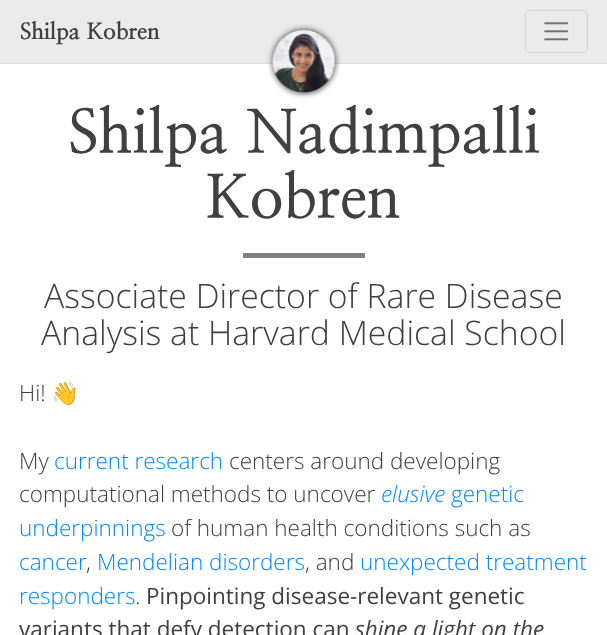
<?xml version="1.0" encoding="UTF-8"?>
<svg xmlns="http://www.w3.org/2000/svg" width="607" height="635">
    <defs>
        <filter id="blur1" x="-50%" y="-200%" width="200%" height="500%"><feGaussianBlur stdDeviation="3"/></filter>
    </defs>
    <rect width="100%" height="100%" fill="#FFFFFF"/>
    <rect x="0" y="0" width="607" height="63" fill="#EAEAEA"/>
    <rect x="0" y="63" width="607" height="1" fill="#DDDDDD"/>
    <text x="20" y="39" font-family="NanumMyeongjo" font-size="22.5" font-weight="800" fill="#404040">Shilpa Kobren</text>
    <rect x="273" y="30" width="62" height="63" rx="31" fill="#000000" fill-opacity="0.8" filter="url(#blur1)"/>
    <image x="272" y="30" width="64" height="63" href="img_01.png"/>
    <rect x="525.5" y="10.5" width="62" height="42" rx="4.5" fill="none" stroke="#D3D3D3"/>
    <image x="544" y="22" width="25" height="19" href="img_02.png"/>
    <text x="68" y="153" font-family="NanumMyeongjo" font-size="60" font-weight="700" fill="#404040">Shilpa Nadimpalli</text>
    <text x="206" y="218" font-family="NanumMyeongjo" font-size="60" font-weight="700" fill="#404040">Kobren</text>
    <rect x="243" y="253" width="122" height="5" fill="#808080"/>
    <text x="44" y="308" font-family="Open Sans" font-size="33.75" font-weight="300" fill="#404040">Associate Director of Rare Disease</text>
    <text x="41" y="345" font-family="Open Sans" font-size="33.75" font-weight="300" fill="#404040">Analysis at Harvard Medical School</text>
    <text x="19" y="401" font-family="Open Sans" font-size="22.5" font-weight="300" fill="#404040">Hi!</text>
    <text x="51" y="401" font-family="Noto Color Emoji" font-size="22.5" fill="#404040">👋</text>
    <text x="19" y="469" font-family="Open Sans" font-size="22.5" font-weight="300" fill="#404040">My</text>
    <text x="54" y="469" font-family="Open Sans" font-size="22.5" font-weight="300" fill="#008AFF">current research</text>
    <text x="229" y="469" font-family="Open Sans" font-size="22.5" font-weight="300" fill="#404040">centers around developing</text>
    <text x="19" y="502" font-family="Open Sans" font-size="22.5" font-weight="300" fill="#404040">computational methods to uncover</text>
    <text x="381" y="502" font-family="Open Sans" font-size="22.5" font-weight="300" font-style="italic" fill="#008AFF">elusive</text>
    <text x="451" y="502" font-family="Open Sans" font-size="22.5" font-weight="300" fill="#008AFF">genetic</text>
    <text x="19" y="536" font-family="Open Sans" font-size="22.5" font-weight="300" fill="#008AFF">underpinnings</text>
    <text x="171" y="536" font-family="Open Sans" font-size="22.5" font-weight="300" fill="#404040">of human health conditions such as</text>
    <text x="19" y="570" font-family="Open Sans" font-size="22.5" font-weight="300" fill="#008AFF">cancer</text>
    <text x="86" y="570" font-family="Open Sans" font-size="22.5" font-weight="300" fill="#404040">,</text>
    <text x="97" y="570" font-family="Open Sans" font-size="22.5" font-weight="300" fill="#008AFF">Mendelian disorders</text>
    <text x="305" y="570" font-family="Open Sans" font-size="22.5" font-weight="300" fill="#404040">, and</text>
    <text x="360" y="570" font-family="Open Sans" font-size="22.5" font-weight="300" fill="#008AFF">unexpected treatment</text>
    <text x="19" y="604" font-family="Open Sans" font-size="22.5" font-weight="300" fill="#008AFF">responders</text>
    <text x="135" y="604" font-family="Open Sans" font-size="22.5" font-weight="300" fill="#404040">.</text>
    <text x="146" y="604" font-family="Open Sans" font-size="22.5" fill="#404040">Pinpointing disease-relevant genetic</text>
    <text x="19" y="637" font-family="Open Sans" font-size="22.5" fill="#404040">variants that defy detection can</text>
    <text x="355" y="637" font-family="Open Sans" font-size="22.5" font-style="italic" fill="#404040">shine a light on the</text>
</svg>
